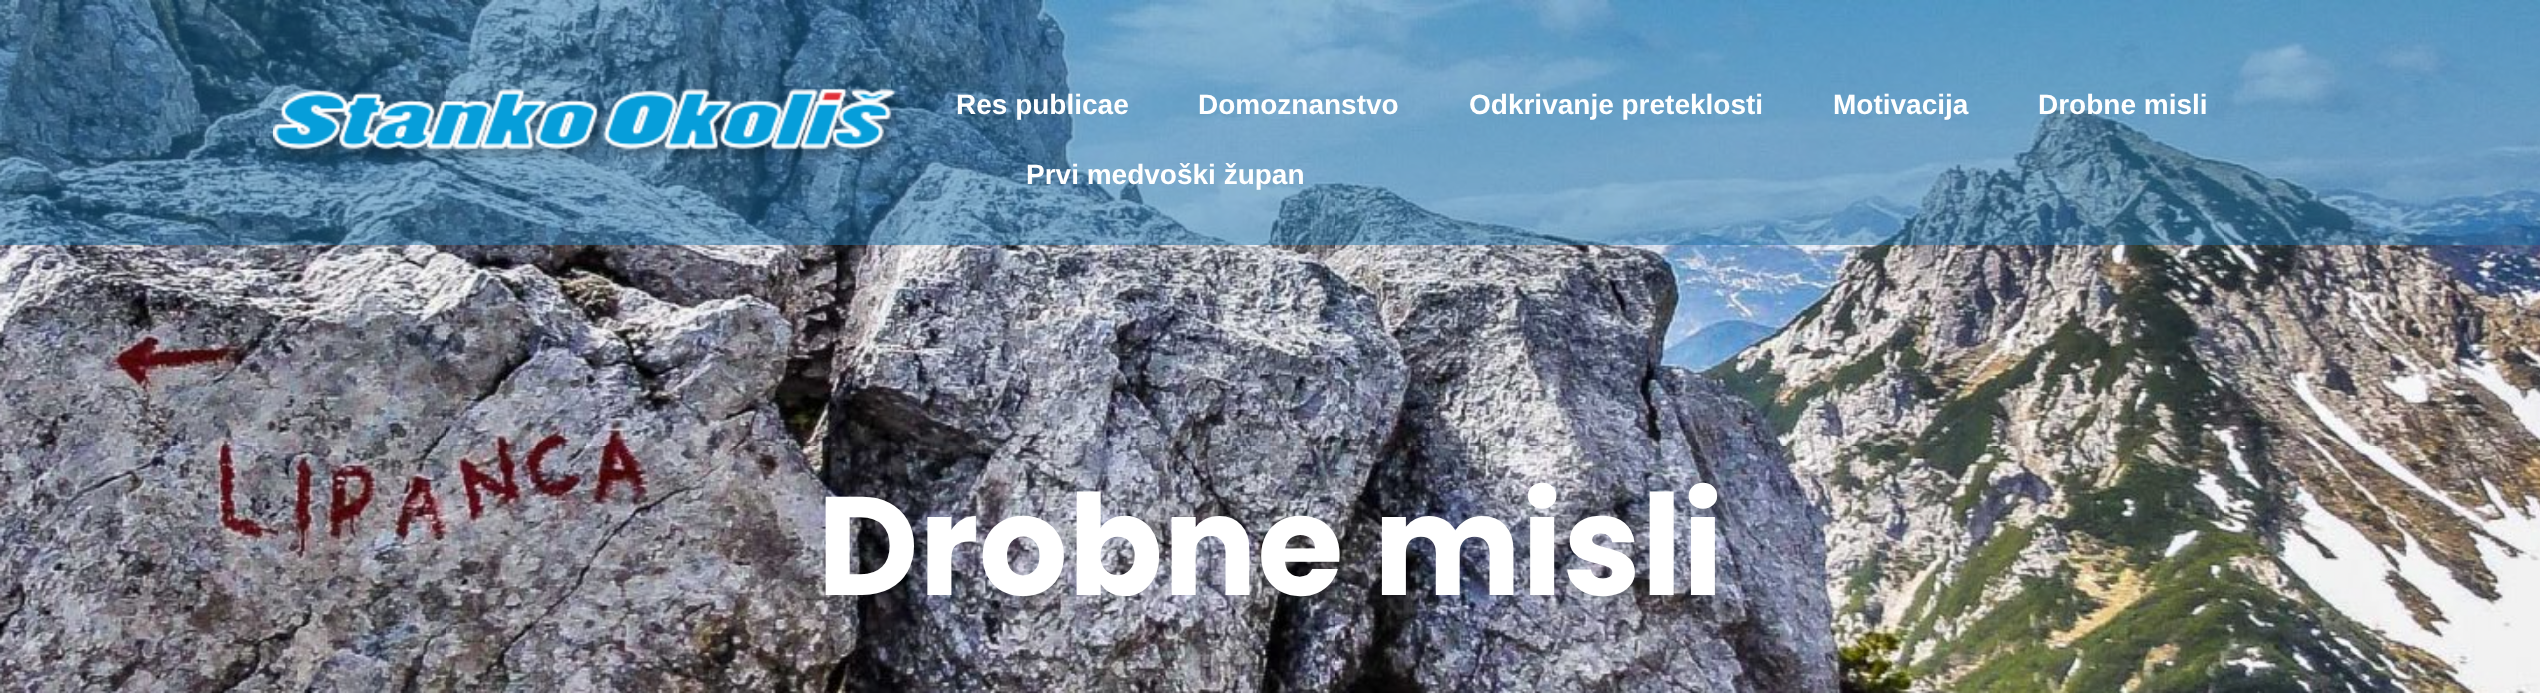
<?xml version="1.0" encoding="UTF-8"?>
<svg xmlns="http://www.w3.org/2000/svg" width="2540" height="693">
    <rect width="100%" height="100%" fill="#FFFFFF"/>
    <image x="0" y="0" width="2540" height="693" href="img_01.png"/>
    <rect x="0" y="0" width="2540" height="245" fill="#1E74AB" fill-opacity="0.5"/>
    <image x="273" y="88" width="630" height="73" href="img_02.png"/>
    <text x="956" y="114" font-family="Liberation Sans" font-size="28" font-weight="700" fill="#FFFFFF">Res publicae</text>
    <text x="1198" y="114" font-family="Liberation Sans" font-size="28" font-weight="700" fill="#FFFFFF">Domoznanstvo</text>
    <text x="1469" y="114" font-family="Liberation Sans" font-size="28" font-weight="700" fill="#FFFFFF">Odkrivanje preteklosti</text>
    <text x="1833" y="114" font-family="Liberation Sans" font-size="28" font-weight="700" fill="#FFFFFF">Motivacija</text>
    <text x="2038" y="114" font-family="Liberation Sans" font-size="28" font-weight="700" fill="#FFFFFF">Drobne misli</text>
    <text x="1026" y="184" font-family="Liberation Sans" font-size="28" font-weight="700" fill="#FFFFFF">Prvi medvoški župan</text>
    <text x="817" y="595" font-family="Poppins" font-size="140" font-weight="700" fill="#FFFFFF">Drobne misli</text>
</svg>
